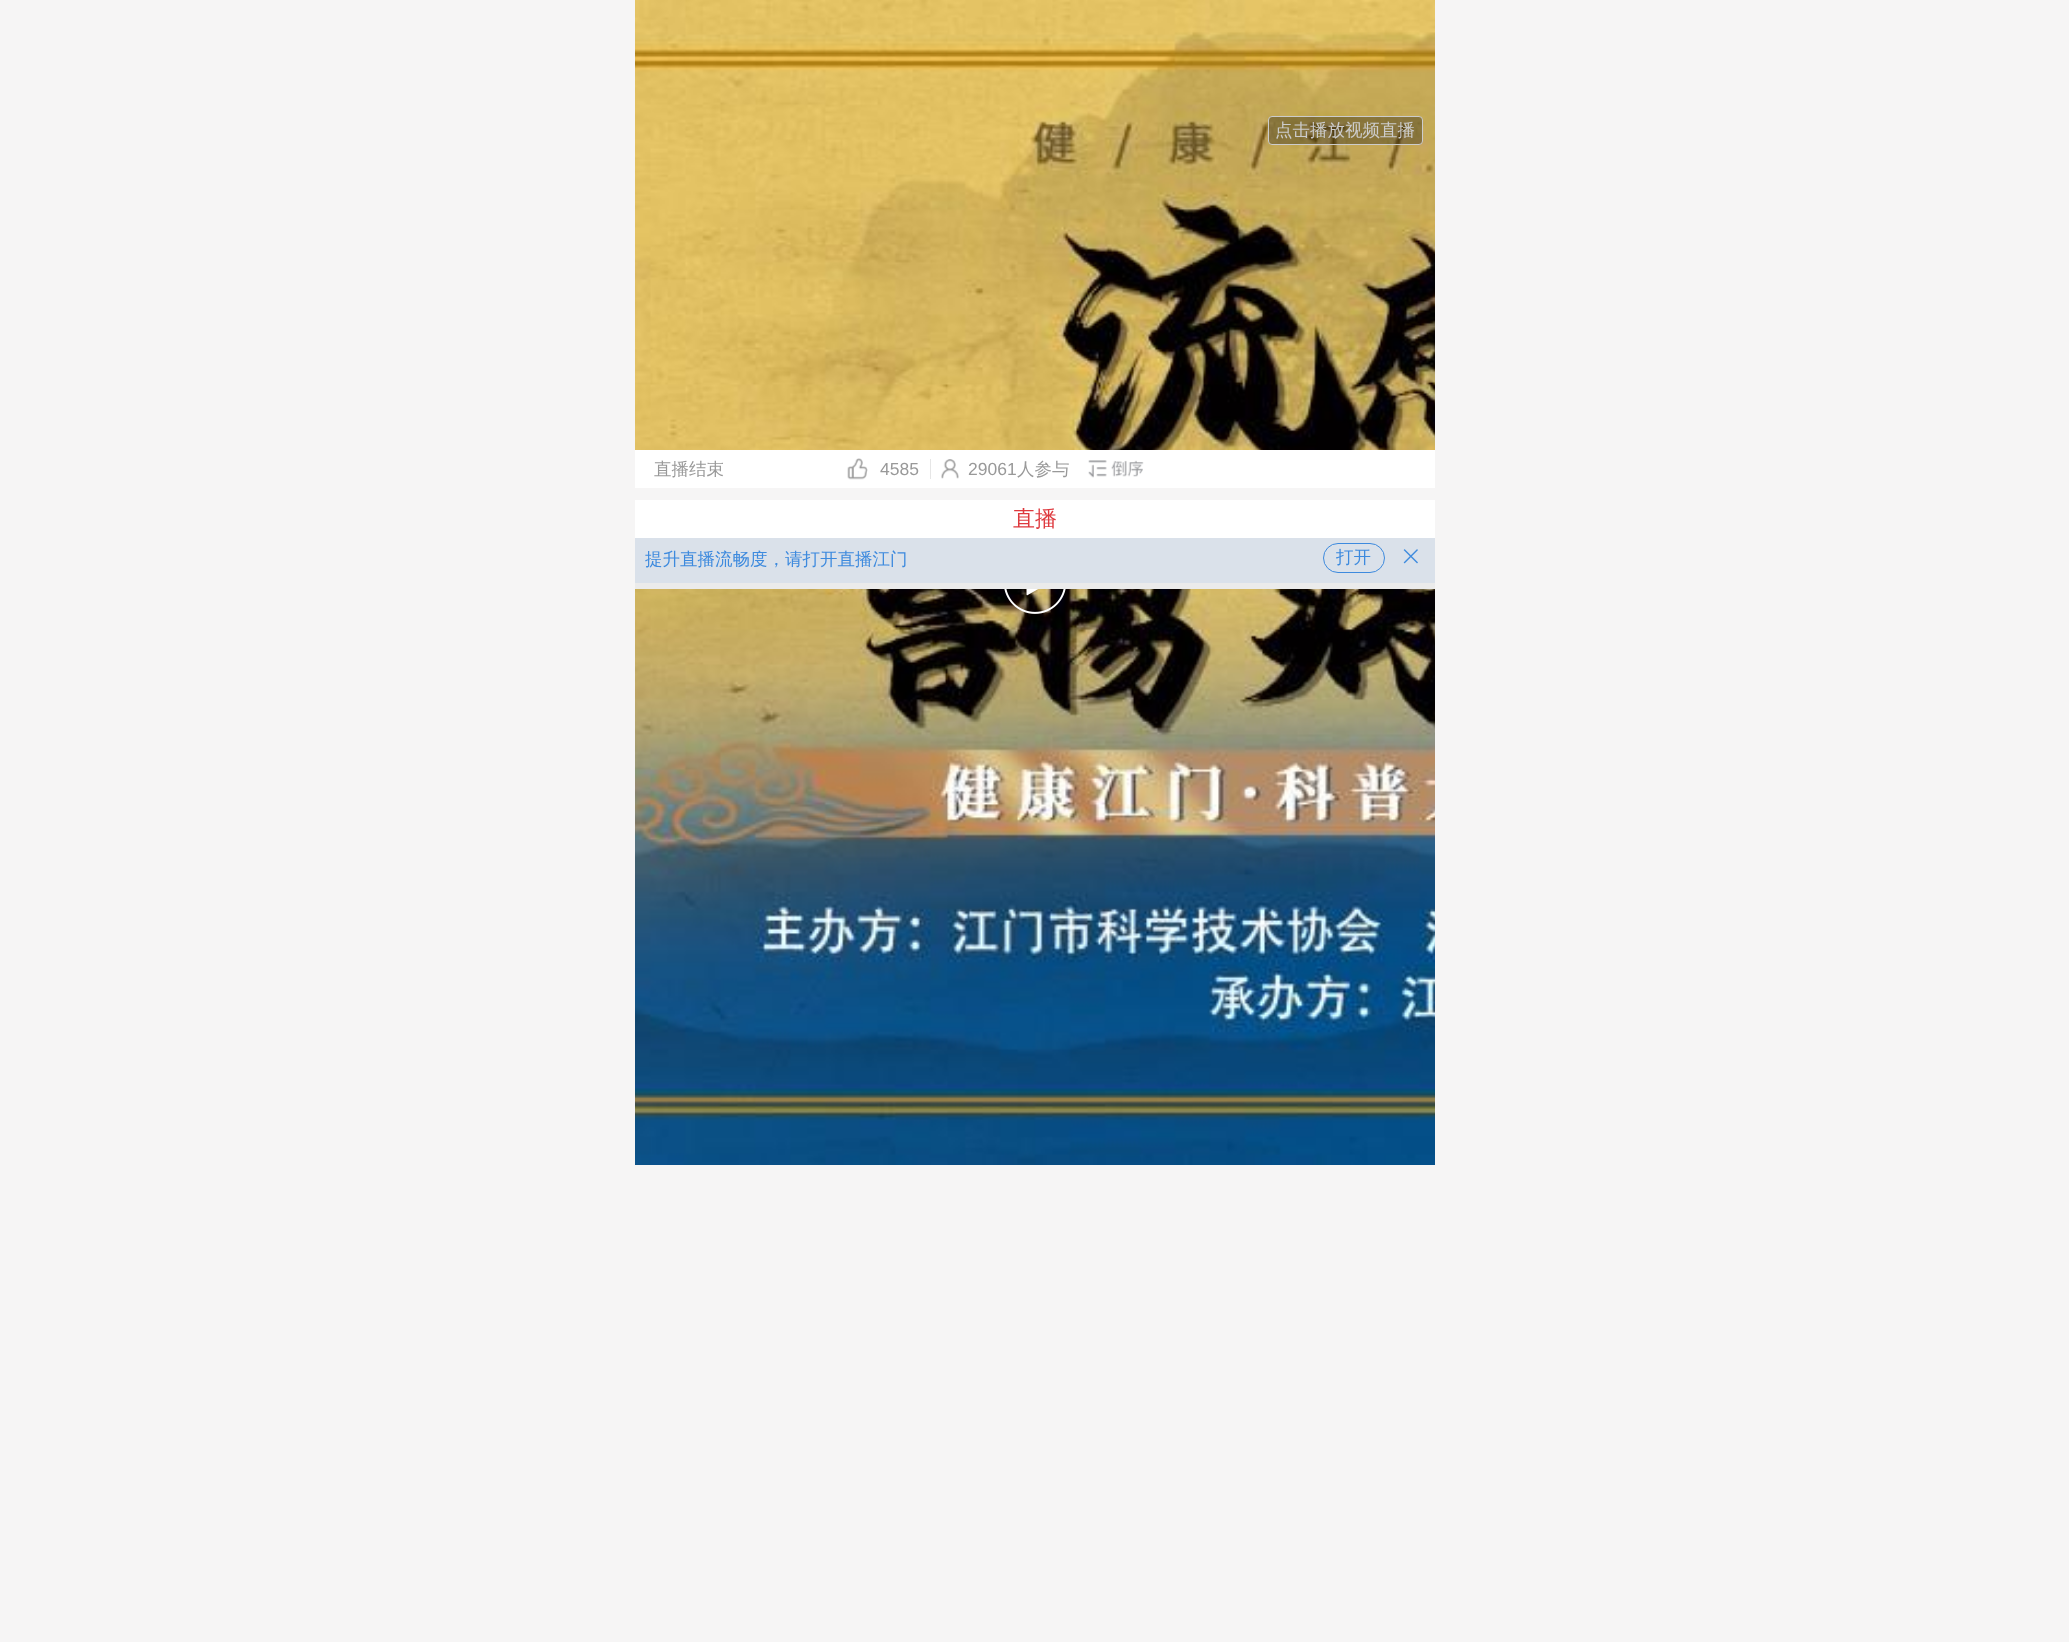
<?xml version="1.0" encoding="UTF-8"?>
<svg xmlns="http://www.w3.org/2000/svg" width="2069" height="1642">
    <rect width="100%" height="100%" fill="#F6F5F5"/>
    <image x="635" y="0" width="800" height="1165" href="img_01.png"/>
    <rect x="1268.5" y="116.5" width="154" height="28" rx="3.5" fill="#000000" fill-opacity="0.3" stroke="#CCCCCC"/>
    <text x="1275" y="136" font-family="WenQuanYi Zen Hei" font-size="17.5" font-weight="500" fill="#CCCCCC">点击播放视频直播</text>
    <image x="1004" y="589" width="62" height="25" href="img_02.png"/>
    <rect x="635" y="488" width="800" height="12" fill="#F6F5F5"/>
    <rect x="635" y="450" width="800" height="38" fill="#FFFFFF"/>
    <text x="654" y="475" font-family="WenQuanYi Zen Hei" font-size="17.5" font-weight="500" fill="#999999">直播结束</text>
    <image x="847" y="458" width="21" height="22" href="img_03.png"/>
    <text x="880" y="475" font-family="Liberation Sans" font-size="17.5" fill="#999999">4585</text>
    <rect x="930" y="459" width="1" height="20" fill="#E6E6E6"/>
    <image x="941" y="459" width="18" height="20" href="img_04.png"/>
    <text x="968" y="475" font-family="Liberation Sans" font-size="17.5" fill="#999999">29061</text>
    <text x="1017" y="475" font-family="WenQuanYi Zen Hei" font-size="17.5" font-weight="500" fill="#999999">人参与</text>
    <image x="1088" y="460" width="56" height="18" href="img_05.png"/>
    <rect x="635" y="500" width="800" height="38" fill="#FFFFFF"/>
    <text x="1013" y="526" font-family="WenQuanYi Zen Hei" font-size="22" font-weight="500" fill="#DE393E">直播</text>
    <rect x="635" y="583" width="800" height="6" fill="#EBEBEB"/>
    <rect x="635" y="538" width="800" height="45" fill="#DAE1EA"/>
    <text x="645" y="565" font-family="WenQuanYi Zen Hei" font-size="17.5" font-weight="500" fill="#3D8ADE">提升直播流畅度，请打开直播江门</text>
    <rect x="1323.5" y="543.5" width="61" height="29" rx="14.5" fill="none" stroke="#3D8ADE"/>
    <text x="1336" y="563" font-family="WenQuanYi Zen Hei" font-size="17.5" font-weight="500" fill="#3D8ADE">打开</text>
    <image x="1403" y="549" width="15" height="15" href="img_06.png"/>
</svg>
